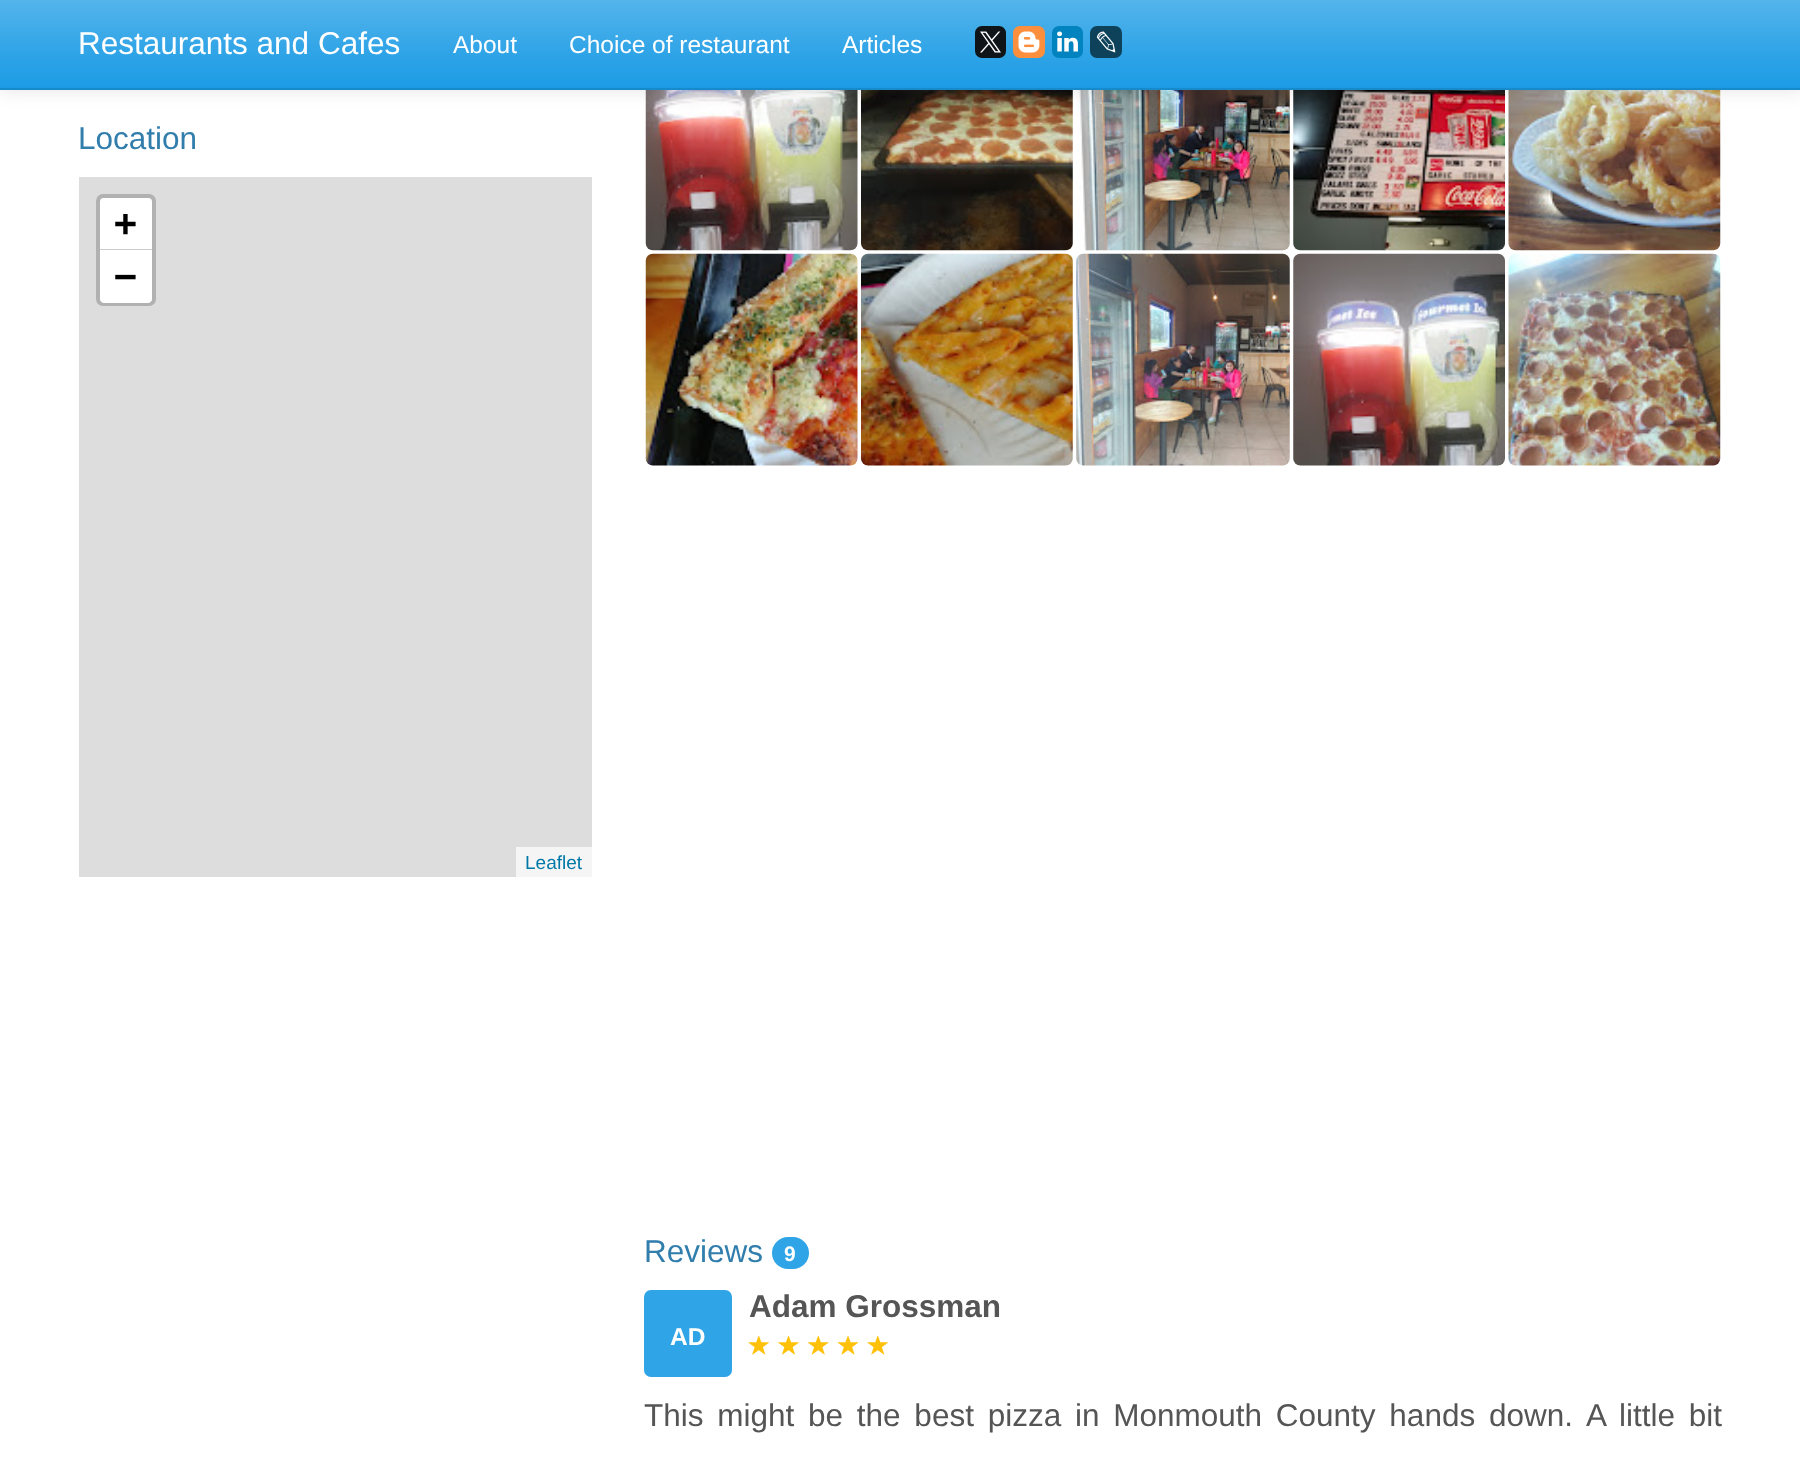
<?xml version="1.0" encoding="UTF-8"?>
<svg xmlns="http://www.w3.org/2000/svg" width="1800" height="1458">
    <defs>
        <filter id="blur1" x="-50%" y="-200%" width="200%" height="500%"><feGaussianBlur stdDeviation="9"/></filter>
        <linearGradient id="g1" gradientUnits="userSpaceOnUse" x1="900" y1="0" x2="900" y2="88"><stop offset="0" stop-color="#54B4EB"/><stop offset="0.6" stop-color="#2FA4E7"/><stop offset="1" stop-color="#1D9CE5"/></linearGradient>
    </defs>
    <rect width="100%" height="100%" fill="#FFFFFF"/>
    <image x="645" y="90" width="213" height="161" href="img_05.png"/>
    <image x="861" y="90" width="212" height="161" href="img_06.png"/>
    <image x="1077" y="90" width="213" height="161" href="img_07.png"/>
    <image x="1293" y="90" width="212" height="161" href="img_08.png"/>
    <image x="1508" y="90" width="213" height="161" href="img_09.png"/>
    <rect x="0" y="2" width="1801" height="89" fill="#000000" fill-opacity="0.1" filter="url(#blur1)"/>
    <rect x="0" y="0" width="1800" height="88" fill="url(#g1)"/>
    <rect x="0" y="88" width="1800" height="2" fill="#178ACC"/>
    <text x="78" y="54" font-family="Liberation Sans" font-size="31.5" fill="#FFFFFF">Restaurants and Cafes</text>
    <text x="453" y="53" font-family="Liberation Sans" font-size="24.5" fill="#FFFFFF">About</text>
    <text x="569" y="53" font-family="Liberation Sans" font-size="24.5" fill="#FFFFFF">Choice of restaurant</text>
    <text x="842" y="53" font-family="Liberation Sans" font-size="24.5" fill="#FFFFFF">Articles</text>
    <rect x="975" y="26" width="31" height="32" rx="7" fill="#0F1419"/>
    <image x="980" y="31" width="21" height="22" href="img_01.png"/>
    <rect x="1013" y="26" width="32" height="32" rx="7" fill="#FB8F3D"/>
    <image x="1018" y="31" width="22" height="22" href="img_02.png"/>
    <rect x="1052" y="26" width="31" height="32" rx="7" fill="#0083BE"/>
    <image x="1057" y="31" width="21" height="21" href="img_03.png"/>
    <rect x="1090" y="26" width="32" height="32" rx="7" fill="#0D425A"/>
    <image x="1096" y="31" width="20" height="22" href="img_04.png"/>
    <text x="78" y="149" font-family="Liberation Sans" font-size="31.5" fill="#317EAC">Location</text>
    <rect x="79" y="177" width="513" height="700" fill="#DDDDDD"/>
    <rect x="98" y="196" width="56" height="108" rx="5" fill="none" stroke="#B1B1B1" stroke-width="4"/>
    <path d="M 104 198 H 148 C 150 198 152 200 152 202 V 250 H 100 V 202 C 100 200 102 198 104 198 Z" fill="#FFFFFF"/>
    <rect x="100" y="249" width="52" height="1" fill="#CCCCCC"/>
    <text x="114" y="236" font-family="DejaVu Sans Mono" font-size="38" font-weight="700" fill="#000000">+</text>
    <path d="M 100 250 H 152 V 299 C 152 301 150 303 148 303 H 104 C 102 303 100 301 100 299 Z" fill="#FFFFFF"/>
    <text x="114" y="289" font-family="DejaVu Sans Mono" font-size="38" font-weight="700" fill="#000000">−</text>
    <rect x="516" y="847" width="76" height="30" fill="#F5F5F5"/>
    <text x="525" y="869" font-family="Liberation Sans" font-size="19" fill="#0078A8">Leaflet</text>
    <image x="645" y="253" width="213" height="213" href="img_10.png"/>
    <image x="861" y="253" width="212" height="213" href="img_11.png"/>
    <image x="1076" y="253" width="214" height="213" href="img_12.png"/>
    <image x="1293" y="253" width="212" height="213" href="img_13.png"/>
    <image x="1508" y="253" width="213" height="213" href="img_14.png"/>
    <text x="644" y="1262" font-family="Liberation Sans" font-size="31.5" fill="#317EAC">Reviews</text>
    <rect x="772" y="1237" width="37" height="32" rx="16" fill="#2FA4E7"/>
    <text x="784" y="1261" font-family="Liberation Sans" font-size="21" font-weight="700" fill="#FFFFFF">9</text>
    <text x="749" y="1317" font-family="Liberation Sans" font-size="31.5" font-weight="700" fill="#555555">Adam Grossman</text>
    <image x="748" y="1335" width="21" height="20" href="img_15.png"/>
    <image x="778" y="1335" width="21" height="20" href="img_16.png"/>
    <image x="807" y="1335" width="22" height="20" href="img_17.png"/>
    <image x="837" y="1335" width="22" height="20" href="img_18.png"/>
    <image x="867" y="1335" width="21" height="20" href="img_15.png"/>
    <rect x="644" y="1290" width="88" height="87" rx="7" fill="#2FA4E7"/>
    <text x="670" y="1345" font-family="Liberation Sans" font-size="24.5" font-weight="700" fill="#FFFFFF">AD</text>
    <text x="644" y="1426" word-spacing="5" font-family="Liberation Sans" font-size="31.5" fill="#555555">This might be the best pizza in Monmouth County hands down.</text>
    <text x="1586" y="1426" word-spacing="5" font-family="Liberation Sans" font-size="31.5" fill="#555555">A little bit</text>
</svg>
